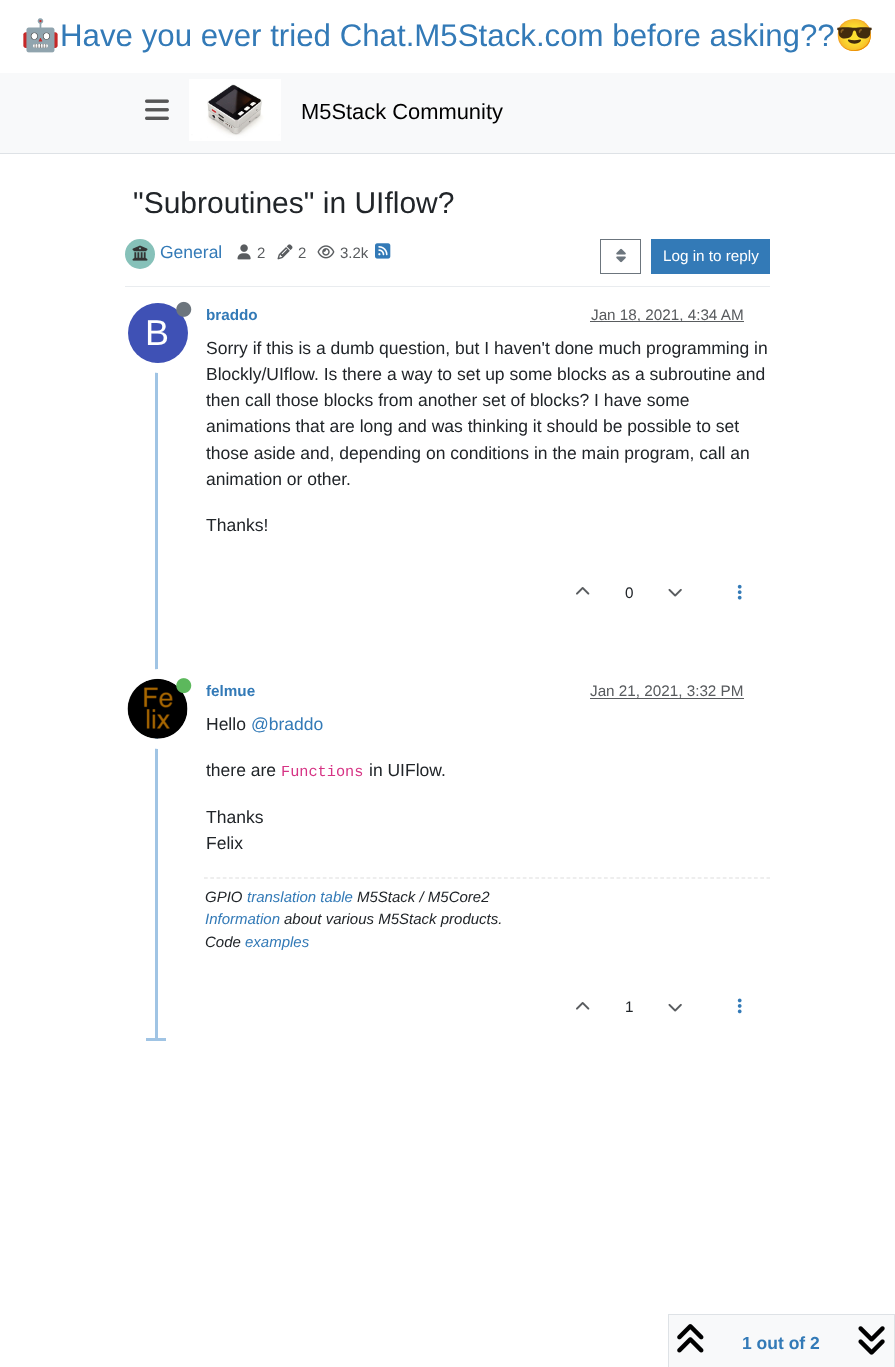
<?xml version="1.0" encoding="UTF-8"?>
<svg xmlns="http://www.w3.org/2000/svg" width="895" height="1367">
    <rect width="100%" height="100%" fill="#FFFFFF"/>
    <text x="21" y="46" font-family="Noto Color Emoji" font-size="31.25" fill="#337AB7">🤖</text>
    <text x="60" y="46" font-family="Liberation Sans" font-size="31.25" fill="#337AB7">Have you ever tried Chat.M5Stack.com before asking??</text>
    <text x="835" y="46" font-family="Noto Color Emoji" font-size="31.25" fill="#337AB7">😎</text>
    <rect x="0" y="73" width="895" height="80" fill="#F8F9FA"/>
    <rect x="0" y="153" width="895" height="1" fill="#DEE2E6"/>
    <image x="145" y="99" width="24" height="21" href="img_01.png"/>
    <image x="189" y="79" width="92" height="62" href="img_02.png"/>
    <text x="301" y="119" font-family="Liberation Sans" font-size="21.9" fill="#000000">M5Stack Community</text>
    <text x="133" y="213" font-family="Liberation Sans" font-size="30" fill="#212529">"Subroutines" in UIflow?</text>
    <rect x="125" y="286" width="645" height="1" fill="#E9ECEF"/>
    <circle cx="140" cy="254" r="15" fill="#86C1B9"/>
    <image x="132" y="245" width="16" height="16" href="img_03.png"/>
    <text x="160" y="258" font-family="Liberation Sans" font-size="17.5" fill="#337AB7">General</text>
    <image x="237" y="244" width="14" height="16" href="img_04.png"/>
    <text x="257" y="258" font-family="Liberation Sans" font-size="15" fill="#585B5E">2</text>
    <image x="277" y="244" width="16" height="16" href="img_05.png"/>
    <text x="298" y="258" font-family="Liberation Sans" font-size="15" fill="#585B5E">2</text>
    <image x="317" y="245" width="18" height="14" href="img_06.png"/>
    <text x="340" y="258" font-family="Liberation Sans" font-size="15" fill="#585B5E">3.2k</text>
    <image x="375" y="243" width="16" height="16" href="img_07.png"/>
    <rect x="600.5" y="239.5" width="40" height="34" fill="none" stroke="#6C757D"/>
    <image x="616" y="248" width="10" height="15" href="img_08.png"/>
    <rect x="651" y="239" width="119" height="35" fill="#337AB7"/>
    <text x="663" y="261" font-family="Liberation Sans" font-size="15.25" fill="#FFFFFF">Log in to reply</text>
    <rect x="155" y="300" width="3" height="740" fill="#A0C4E4"/>
    <text x="206" y="320" font-family="Liberation Sans" font-size="15.25" font-weight="700" fill="#337AB7">braddo</text>
    <rect x="590" y="321" width="154" height="1" fill="#595C5F"/>
    <text x="591" y="320" font-family="Liberation Sans" font-size="15.25" fill="#585B5E">Jan 18, 2021, 4:34 AM</text>
    <circle cx="158" cy="333" r="35" fill="none" stroke="#FFFFFF" stroke-width="10"/>
    <circle cx="158" cy="333" r="30" fill="#3F51B5"/>
    <image x="176" y="301" width="16" height="16" href="img_09.png"/>
    <text x="145" y="345" font-family="Liberation Sans" font-size="36" fill="#FFFFFF">B</text>
    <text font-family="Liberation Sans" font-size="17.5" fill="#212529">
        <tspan x="206" y="354">Sorry if this is a dumb question, but I haven't done much programming in</tspan>
        <tspan x="206" y="380">Blockly/UIflow. Is there a way to set up some blocks as a subroutine and</tspan>
        <tspan x="206" y="406">then call those blocks from another set of blocks? I have some</tspan>
        <tspan x="206" y="432">animations that are long and was thinking it should be possible to set</tspan>
        <tspan x="206" y="459">those aside and, depending on conditions in the main program, call an</tspan>
        <tspan x="206" y="485">animation or other.</tspan>
    </text>
    <text x="206" y="531" font-family="Liberation Sans" font-size="17.5" fill="#212529">Thanks!</text>
    <image x="576" y="587" width="14" height="8" href="img_10.png"/>
    <text x="625" y="598" font-family="Liberation Sans" font-size="15.25" fill="#212529">0</text>
    <image x="668" y="588" width="14" height="9" href="img_11.png"/>
    <image x="737" y="584" width="5" height="16" href="img_12.png"/>
    <circle cx="158" cy="709" r="35" fill="none" stroke="#FFFFFF" stroke-width="10"/>
    <image x="127" y="678" width="61" height="61" href="img_13.png"/>
    <image x="176" y="678" width="16" height="16" href="img_14.png"/>
    <text x="206" y="696" font-family="Liberation Sans" font-size="15.25" font-weight="700" fill="#337AB7">felmue</text>
    <text x="590" y="696" font-family="Liberation Sans" font-size="15.25" fill="#585B5E">Jan 21, 2021, 3:32 PM</text>
    <rect x="590" y="698" width="154" height="1" fill="#595C5F"/>
    <text x="206" y="730" font-family="Liberation Sans" font-size="17.5" fill="#212529">Hello</text>
    <text x="251" y="730" font-family="Liberation Sans" font-size="17.5" fill="#337AB7">@braddo</text>
    <text x="206" y="776" font-family="Liberation Sans" font-size="17.5" fill="#212529">there are</text>
    <text x="281" y="776" font-family="Liberation Mono" font-size="15.25" fill="#D63384">Functions</text>
    <text x="369" y="776" font-family="Liberation Sans" font-size="17.5" fill="#212529">in UIFlow.</text>
    <text font-family="Liberation Sans" font-size="17.5" fill="#212529">
        <tspan x="206" y="823">Thanks</tspan>
        <tspan x="206" y="849">Felix</tspan>
    </text>
    <path d="M 204 878 H 770" fill="none" stroke="#DEDEDE" stroke-width="1.2" stroke-dasharray="3.75 2.5"/>
    <text x="205" y="902" font-family="Liberation Sans" font-size="15" font-style="italic" fill="#212529">GPIO</text>
    <text x="247" y="902" font-family="Liberation Sans" font-size="15" font-style="italic" fill="#337AB7">translation table</text>
    <text x="357" y="902" font-family="Liberation Sans" font-size="15" font-style="italic" fill="#212529">M5Stack / M5Core2</text>
    <text x="205" y="924" font-family="Liberation Sans" font-size="15" font-style="italic" fill="#337AB7">Information</text>
    <text x="284" y="924" font-family="Liberation Sans" font-size="15" font-style="italic" fill="#212529">about various M5Stack products.</text>
    <text x="205" y="947" font-family="Liberation Sans" font-size="15" font-style="italic" fill="#212529">Code</text>
    <text x="245" y="947" font-family="Liberation Sans" font-size="15" font-style="italic" fill="#337AB7">examples</text>
    <image x="576" y="1002" width="14" height="8" href="img_10.png"/>
    <text x="625" y="1012" font-family="Liberation Sans" font-size="15.25" fill="#212529">1</text>
    <image x="668" y="1003" width="14" height="9" href="img_11.png"/>
    <image x="737" y="998" width="5" height="16" href="img_15.png"/>
    <rect x="146" y="1038" width="20" height="3" fill="#A0C4E4"/>
    <rect x="668.5" y="1314.5" width="226" height="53" fill="#F8F9FA" stroke="#DEE2E6"/>
    <image x="677" y="1324" width="27" height="29" href="img_16.png"/>
    <text x="742" y="1349" font-family="Liberation Sans" font-size="17.5" font-weight="700" fill="#337AB7">1 out of 2</text>
    <image x="858" y="1326" width="27" height="29" href="img_17.png"/>
</svg>
